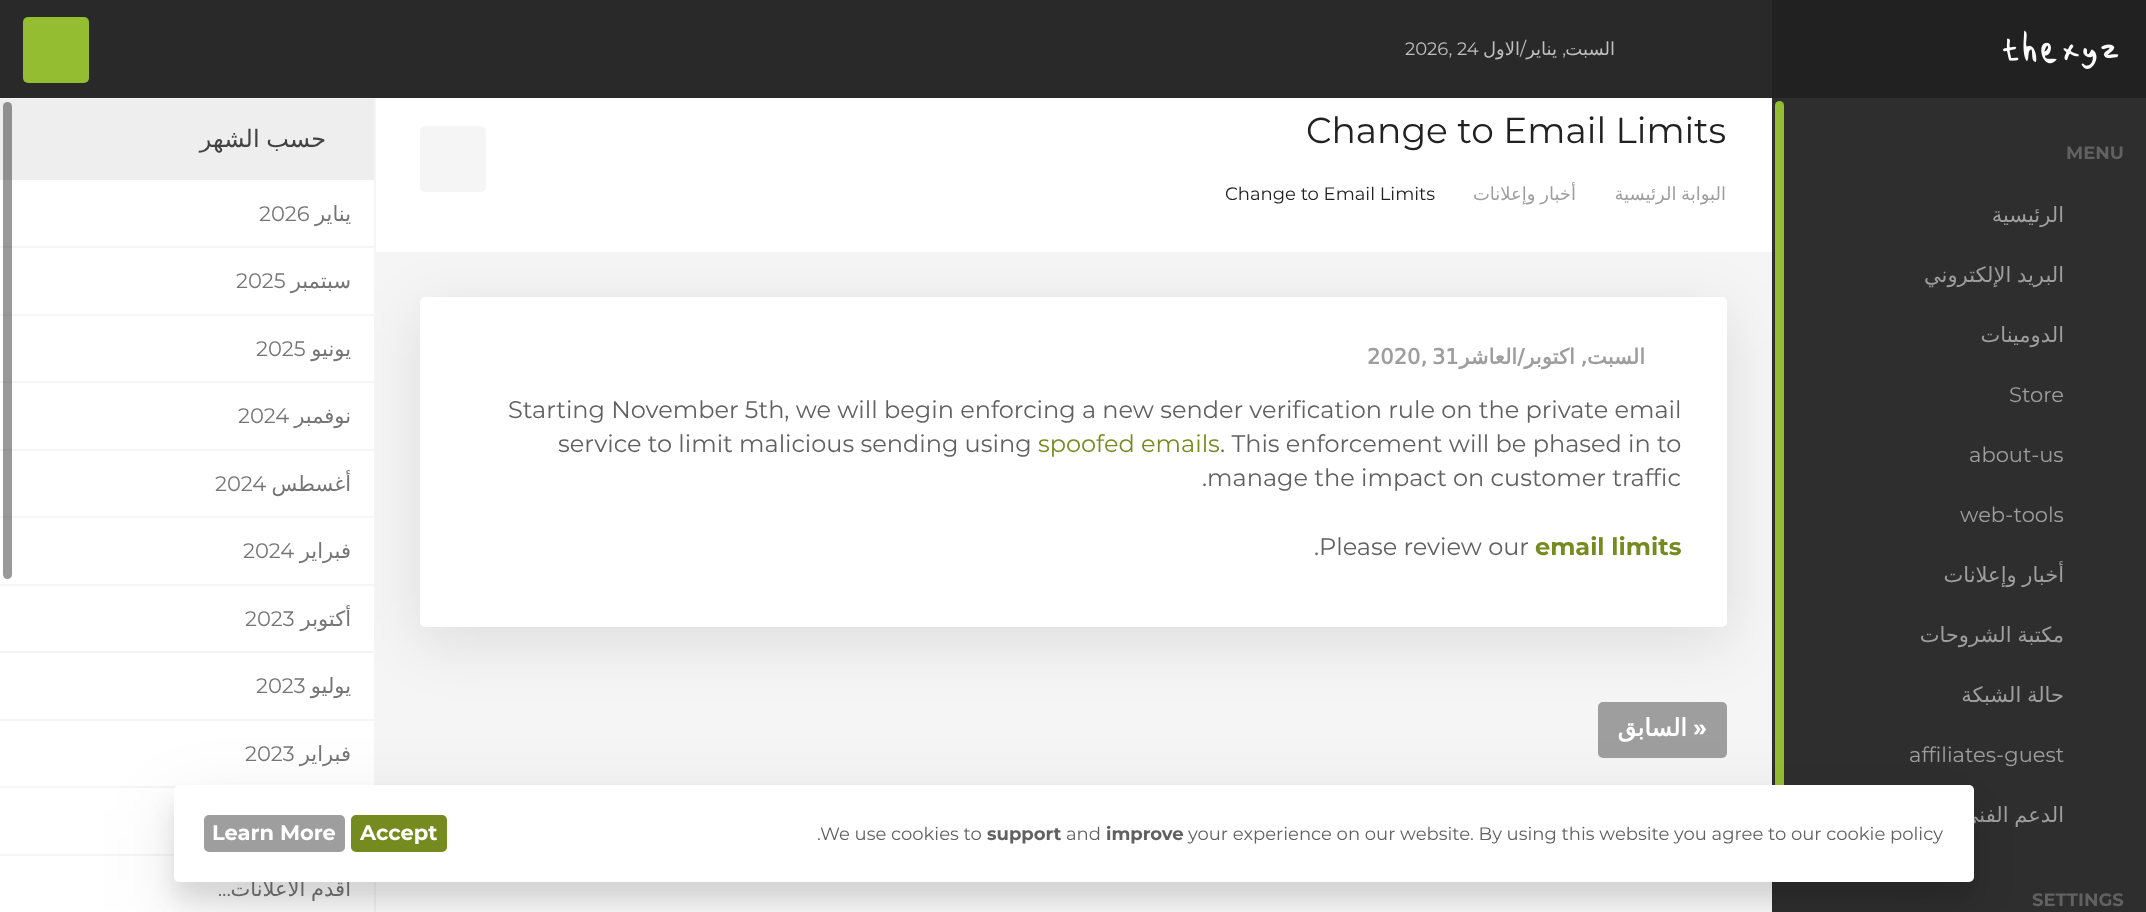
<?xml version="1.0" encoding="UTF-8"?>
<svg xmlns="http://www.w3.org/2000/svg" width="2146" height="912">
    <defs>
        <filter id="blur1" x="-50%" y="-200%" width="200%" height="500%"><feGaussianBlur stdDeviation="30"/></filter>
        <filter id="blur2" x="-50%" y="-200%" width="200%" height="500%"><feGaussianBlur stdDeviation="11"/></filter>
        <filter id="blur3" x="-50%" y="-200%" width="200%" height="500%"><feGaussianBlur stdDeviation="37.5"/></filter>
    </defs>
    <rect width="100%" height="100%" fill="#F5F5F5"/>
    <rect x="0" y="0" width="1772" height="98" fill="#292929"/>
    <rect x="23" y="17" width="66" height="66" rx="5" fill="#94BD31"/>
    <text x="1405" y="55" font-family="Montserrat" font-size="18" fill="#BFBFBF">2026, 24</text>
    <text x="1520" y="55" font-family="DejaVu Sans" font-size="18" direction="rtl" fill="#BFBFBF">الاول</text>
    <text x="1526" y="55" font-family="Montserrat" font-size="18" direction="rtl" fill="#BFBFBF">/</text>
    <text x="1557" y="55" font-family="DejaVu Sans" font-size="18" direction="rtl" fill="#BFBFBF">يناير</text>
    <text x="1566" y="55" font-family="Montserrat" font-size="18" direction="rtl" fill="#BFBFBF">,</text>
    <text x="1615" y="55" font-family="DejaVu Sans" font-size="18" direction="rtl" fill="#BFBFBF">السبت</text>
    <rect x="376" y="98" width="1396" height="154" fill="#FFFFFF"/>
    <rect x="1599" y="703" width="127" height="54" rx="4" fill="#9E9E9E" stroke="#9E9E9E" stroke-width="2"/>
    <rect x="420" y="312" width="1307" height="330" rx="5" fill="#000000" fill-opacity="0.1" filter="url(#blur1)"/>
    <rect x="0" y="180" width="374" height="674" fill="#FFFFFF"/>
    <rect x="0" y="99" width="374" height="81" fill="#EEEEEE"/>
    <rect x="0" y="246" width="374" height="2" fill="#F5F5F5"/>
    <rect x="0" y="314" width="374" height="2" fill="#F5F5F5"/>
    <rect x="0" y="381" width="374" height="2" fill="#F5F5F5"/>
    <rect x="0" y="449" width="374" height="2" fill="#F5F5F5"/>
    <rect x="0" y="516" width="374" height="2" fill="#F5F5F5"/>
    <rect x="3" y="102" width="9" height="477" rx="4.5" fill="#000000" fill-opacity="0.4"/>
    <text x="326" y="147" word-spacing="-1" font-family="DejaVu Sans" font-size="24" direction="rtl" fill="#424242">حسب الشهر</text>
    <text x="259" y="221" font-family="Montserrat" font-size="21" fill="#757575">2026</text>
    <text x="351" y="221" font-family="DejaVu Sans" font-size="21" direction="rtl" fill="#757575">يناير</text>
    <text x="236" y="288" font-family="Montserrat" font-size="21" fill="#757575">2025</text>
    <text x="351" y="288" font-family="DejaVu Sans" font-size="21" direction="rtl" fill="#757575">سبتمبر</text>
    <text x="256" y="356" font-family="Montserrat" font-size="21" fill="#757575">2025</text>
    <text x="351" y="356" font-family="DejaVu Sans" font-size="21" direction="rtl" fill="#757575">يونيو</text>
    <text x="238" y="423" font-family="Montserrat" font-size="21" fill="#757575">2024</text>
    <text x="351" y="423" font-family="DejaVu Sans" font-size="21" direction="rtl" fill="#757575">نوفمبر</text>
    <text x="215" y="491" font-family="Montserrat" font-size="21" fill="#757575">2024</text>
    <text x="351" y="491" font-family="DejaVu Sans" font-size="21" direction="rtl" fill="#757575">أغسطس</text>
    <text x="243" y="558" font-family="Montserrat" font-size="21" fill="#757575">2024</text>
    <text x="351" y="558" font-family="DejaVu Sans" font-size="21" direction="rtl" fill="#757575">فبراير</text>
    <rect x="0" y="584" width="374" height="2" fill="#F5F5F5"/>
    <rect x="0" y="651" width="374" height="2" fill="#F5F5F5"/>
    <text x="245" y="626" font-family="Montserrat" font-size="21" fill="#757575">2023</text>
    <text x="351" y="626" font-family="DejaVu Sans" font-size="21" direction="rtl" fill="#757575">أكتوبر</text>
    <text x="256" y="693" font-family="Montserrat" font-size="21" fill="#757575">2023</text>
    <text x="351" y="693" font-family="DejaVu Sans" font-size="21" direction="rtl" fill="#757575">يوليو</text>
    <rect x="0" y="719" width="374" height="2" fill="#F5F5F5"/>
    <rect x="0" y="786" width="176" height="2" fill="#F5F5F5"/>
    <text x="245" y="761" font-family="Montserrat" font-size="21" fill="#757575">2023</text>
    <text x="351" y="761" font-family="DejaVu Sans" font-size="21" direction="rtl" fill="#757575">فبراير</text>
    <rect x="0" y="856" width="374" height="56" fill="#FFFFFF"/>
    <text x="231" y="896" font-family="Montserrat" font-size="21" direction="rtl" fill="#757575">...</text>
    <text x="351" y="896" word-spacing="-1" font-family="DejaVu Sans" font-size="21" direction="rtl" fill="#757575">أقدم الاعلانات</text>
    <rect x="420" y="126" width="66" height="66" rx="5" fill="#F5F5F5"/>
    <text x="1306" y="143" font-family="Montserrat" font-size="36" fill="#212121">Change to Email Limits</text>
    <text x="1225" y="200" font-family="Montserrat" font-size="18" fill="#212121">Change to Email Limits</text>
    <text x="1576" y="200" word-spacing="-1" font-family="DejaVu Sans" font-size="18" direction="rtl" fill="#9E9E9E">أخبار وإعلانات</text>
    <text x="1726" y="200" word-spacing="-1" font-family="DejaVu Sans" font-size="18" direction="rtl" fill="#9E9E9E">البوابة الرئيسية</text>
    <rect x="420" y="297" width="1307" height="330" rx="5" fill="#FFFFFF"/>
    <text x="1367" y="364" font-family="DejaVu Sans" font-size="21" font-weight="700" fill="#9E9E9E">2020,</text>
    <text x="1432" y="364" font-family="DejaVu Sans" font-size="21" font-weight="700" fill="#9E9E9E">31</text>
    <text x="1645" y="364" word-spacing="-1" font-family="DejaVu Sans" font-size="21" font-weight="700" direction="rtl" fill="#9E9E9E">السبت, اكتوبر/العاشر</text>
    <text x="508" y="418" font-family="Montserrat" font-size="24" fill="#616161">Starting November 5th, we will begin enforcing a new sender verification rule on the private email</text>
    <text x="558" y="452" font-family="Montserrat" font-size="24" fill="#616161">service to limit malicious sending using</text>
    <text x="1038" y="452" font-family="Montserrat" font-size="24" fill="#768B1F">spoofed emails</text>
    <text x="1220" y="452" font-family="Montserrat" font-size="24" fill="#616161">. This enforcement will be phased in to</text>
    <text x="1202" y="486" font-family="Montserrat" font-size="24" fill="#616161">.manage the impact on customer traffic</text>
    <text x="1314" y="555" font-family="Montserrat" font-size="24" fill="#616161">.</text>
    <text x="1319" y="555" font-family="Montserrat" font-size="24" fill="#616161">Please review our</text>
    <text x="1535" y="555" font-family="Montserrat" font-size="24" font-weight="700" fill="#768B1F">email limits</text>
    <text x="1687" y="736" font-family="DejaVu Sans" font-size="24" font-weight="700" direction="rtl" fill="#FFFFFF">السابق</text>
    <text x="1707" y="736" font-family="Montserrat" font-size="24" font-weight="700" direction="rtl" fill="#FFFFFF">«</text>
    <rect x="1772" y="98" width="374" height="814" fill="#2E2E2E"/>
    <rect x="1772" y="0" width="374" height="98" fill="#212121"/>
    <image x="2003" y="30" width="116" height="39" href="img_01.png"/>
    <rect x="1775" y="101" width="9" height="756" rx="4.5" fill="#94BD31"/>
    <text x="2066" y="159" font-family="Montserrat" font-size="18" font-weight="700" fill="#616161">MENU</text>
    <text x="2064" y="222" font-family="DejaVu Sans" font-size="21" direction="rtl" fill="#9E9E9E">الرئيسية</text>
    <text x="2064" y="282" word-spacing="-1" font-family="DejaVu Sans" font-size="21" direction="rtl" fill="#9E9E9E">البريد الإلكتروني</text>
    <text x="2064" y="342" font-family="DejaVu Sans" font-size="21" direction="rtl" fill="#9E9E9E">الدومينات</text>
    <text x="2009" y="402" font-family="Montserrat" font-size="21" fill="#9E9E9E">Store</text>
    <text x="1969" y="462" font-family="Montserrat" font-size="21" fill="#9E9E9E">about-us</text>
    <text x="1960" y="522" font-family="Montserrat" font-size="21" fill="#9E9E9E">web-tools</text>
    <text x="2064" y="582" word-spacing="-1" font-family="DejaVu Sans" font-size="21" direction="rtl" fill="#9E9E9E">أخبار وإعلانات</text>
    <text x="2064" y="642" word-spacing="-1" font-family="DejaVu Sans" font-size="21" direction="rtl" fill="#9E9E9E">مكتبة الشروحات</text>
    <text x="2064" y="702" word-spacing="-1" font-family="DejaVu Sans" font-size="21" direction="rtl" fill="#9E9E9E">حالة الشبكة</text>
    <text x="1909" y="762" font-family="Montserrat" font-size="21" fill="#9E9E9E">affiliates-guest</text>
    <text x="2064" y="822" word-spacing="-1" font-family="DejaVu Sans" font-size="21" direction="rtl" fill="#9E9E9E">الدعم الفني</text>
    <text x="2032" y="906" font-family="Montserrat" font-size="18" font-weight="700" fill="#616161">SETTINGS</text>
    <rect x="376" y="882" width="1396" height="30" fill="#FFFFFF"/>
    <rect x="174" y="803" width="1800" height="97" rx="5" fill="#000000" fill-opacity="0.1" filter="url(#blur2)"/>
    <rect x="174" y="810" width="1800" height="98" rx="5" fill="#000000" fill-opacity="0.1" filter="url(#blur3)"/>
    <rect x="174" y="785" width="1800" height="97" rx="5" fill="#FFFFFF"/>
    <rect x="205" y="816" width="139" height="35" rx="4" fill="#9E9E9E" stroke="#9E9E9E" stroke-width="2"/>
    <text x="212" y="840" font-family="Montserrat" font-size="21" font-weight="700" fill="#FFFFFF">Learn More</text>
    <rect x="352" y="816" width="94" height="35" rx="4" fill="#768B1F" stroke="#768B1F" stroke-width="2"/>
    <text x="360" y="840" font-family="Montserrat" font-size="21" font-weight="700" fill="#FFFFFF">Accept</text>
    <text x="817" y="840" font-family="Montserrat" font-size="18" fill="#616161">.</text>
    <text x="820" y="840" font-family="Montserrat" font-size="18" fill="#616161">We use cookies to</text>
    <text x="987" y="840" font-family="Montserrat" font-size="18" font-weight="700" fill="#616161">support</text>
    <text x="1066" y="840" font-family="Montserrat" font-size="18" fill="#616161">and</text>
    <text x="1106" y="840" font-family="Montserrat" font-size="18" font-weight="700" fill="#616161">improve</text>
    <text x="1188" y="840" font-family="Montserrat" font-size="18" fill="#616161">your experience on our website. By using this website you agree to our cookie policy</text>
</svg>
